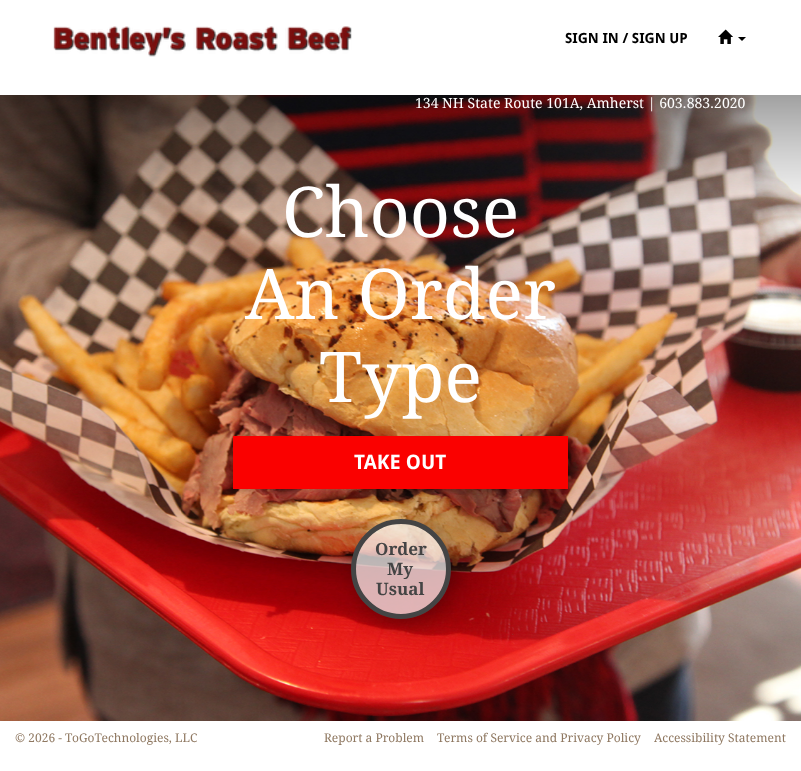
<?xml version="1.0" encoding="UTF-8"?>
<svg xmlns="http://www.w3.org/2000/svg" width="801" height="771">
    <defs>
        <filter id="blur1" x="-50%" y="-200%" width="200%" height="500%"><feGaussianBlur stdDeviation="3"/></filter>
        <clipPath id="clip1"><path d="M 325 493 H 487 V 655 H 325 Z M 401 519 C 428.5 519 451 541.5 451 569 C 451 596.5 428.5 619 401 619 C 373.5 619 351 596.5 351 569 C 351 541.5 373.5 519 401 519 Z" clip-rule="evenodd"/></clipPath>
        <filter id="blur2" x="-50%" y="-200%" width="200%" height="500%"><feGaussianBlur stdDeviation="10"/></filter>
    </defs>
    <rect width="100%" height="100%" fill="#FFFFFF"/>
    <image x="53" y="26" width="299" height="31" href="img_01.png"/>
    <text x="565" y="43" font-family="Droid Sans" font-size="14" font-weight="700" fill="#000000">SIGN IN / SIGN UP</text>
    <image x="718" y="29" width="15" height="15" href="img_02.png"/>
    <path d="M 738 37 H 746 L 742 41 Z" fill="#000000"/>
    <image x="0" y="95" width="801" height="626" href="img_03.png"/>
    <text x="415" y="108" font-family="Droid Serif" font-size="14" fill="#FFFFFF">134 NH State Route 101A, Amherst | 603.883.2020</text>
    <text x="282" y="237" font-family="Droid Serif" font-size="70" fill="#FFFFFF">Choose</text>
    <text x="245" y="319" font-family="Droid Serif" font-size="70" fill="#FFFFFF">An Order</text>
    <text x="319" y="402" font-family="Droid Serif" font-size="70" fill="#FFFFFF">Type</text>
    <rect x="236" y="439" width="335" height="53" fill="#000000" fill-opacity="0.2" filter="url(#blur1)"/>
    <rect x="233" y="436" width="335" height="53" fill="#FA0100"/>
    <text x="354" y="469" font-family="Droid Sans" font-size="20" font-weight="700" fill="#FFFFFF">TAKE OUT</text>
    <g clip-path="url(#clip1)">
        <rect x="356" y="524" width="100" height="100" rx="50" fill="#000000" fill-opacity="0.3" filter="url(#blur2)"/>
    </g>
    <circle cx="401" cy="569" r="47.5" fill="#FFFFFF" fill-opacity="0.7" stroke="#444444" stroke-width="5"/>
    <text x="375" y="555" font-family="Droid Serif" font-size="17" font-weight="700" fill="#444444">Order</text>
    <text x="387" y="575" font-family="Droid Serif" font-size="17" font-weight="700" fill="#444444">My</text>
    <text x="376" y="595" font-family="Droid Serif" font-size="17" font-weight="700" fill="#444444">Usual</text>
    <text x="15" y="742" font-family="Droid Serif" font-size="12" fill="#8F7861">© 2026 - ToGoTechnologies, LLC</text>
    <text x="324" y="742" font-family="Droid Serif" font-size="12" fill="#8F7861">Report a Problem</text>
    <text x="437" y="742" font-family="Droid Serif" font-size="12" fill="#8F7861">Terms of Service and Privacy Policy</text>
    <text x="654" y="742" font-family="Droid Serif" font-size="12" fill="#8F7861">Accessibility Statement</text>
</svg>
